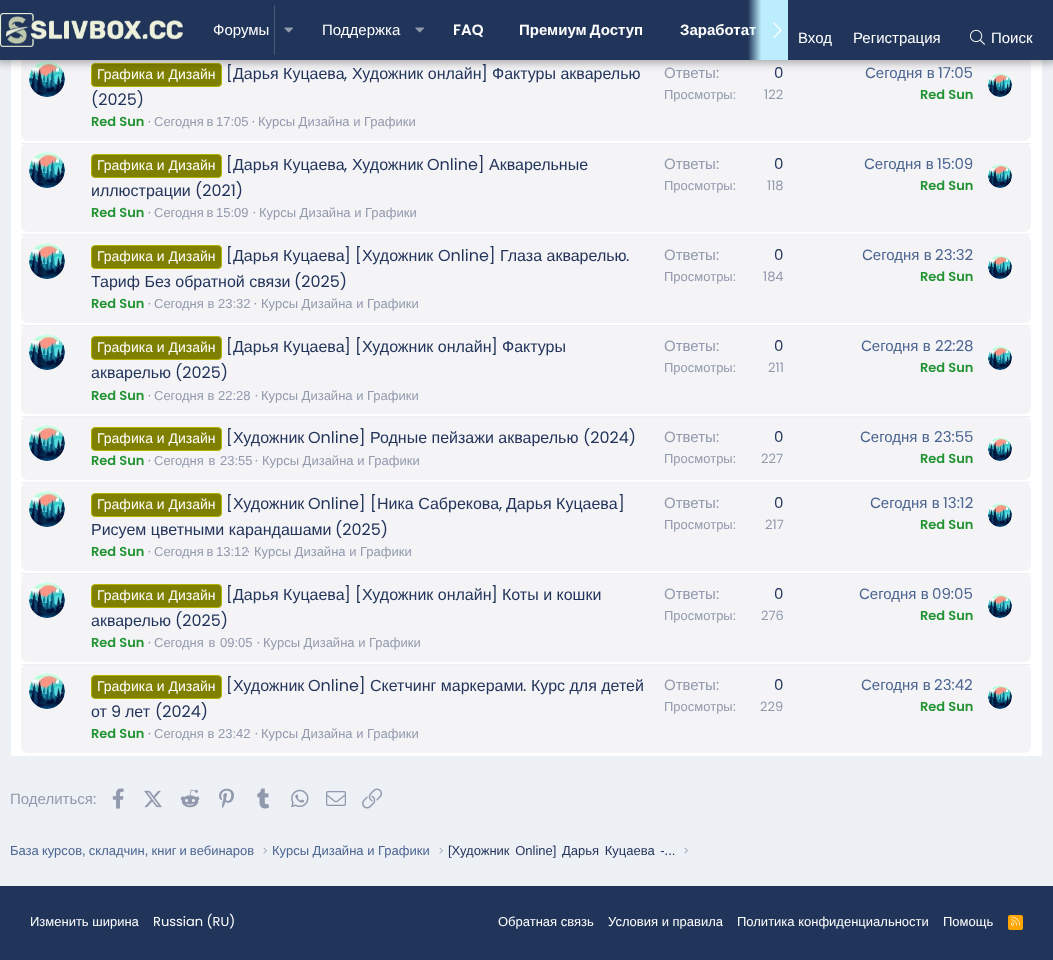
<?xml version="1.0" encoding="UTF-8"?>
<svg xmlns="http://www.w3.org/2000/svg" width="1053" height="960">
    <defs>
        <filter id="blur1" x="-50%" y="-200%" width="200%" height="500%"><feGaussianBlur stdDeviation="4"/></filter>
        <linearGradient id="g1" gradientUnits="userSpaceOnUse" x1="748" y1="30" x2="788" y2="30"><stop offset="0" stop-color="#BCEDFC" stop-opacity="0"/><stop offset="0.33" stop-color="#BCEDFC"/></linearGradient>
    </defs>
    <rect width="100%" height="100%" fill="#EDF0F5"/>
    <rect x="10" y="-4" width="1033" height="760" rx="4" fill="#FFFFFF"/>
    <path d="M 11.5 754.5 C 11 754 10.5 753 10.5 752 V -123 C 10.5 -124 11 -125 11.5 -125.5 C 12 -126 13 -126.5 14 -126.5 H 1039 C 1040 -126.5 1041 -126 1041.5 -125.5 C 1042 -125 1042.5 -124 1042.5 -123 V 752 C 1042.5 753 1042 754 1041.5 754.5" fill="none" stroke="#EDF0F5"/>
    <rect x="21" y="52" width="1010" height="89" rx="7" fill="#F4F4F7"/>
    <circle cx="47" cy="79" r="18" fill="#FFFFFF"/>
    <image x="29" y="61" width="36" height="36" href="img_05.png"/>
    <rect x="91.5" y="63.5" width="130" height="23" rx="3.5" fill="#808000" stroke="#B3B300"/>
    <circle cx="1000" cy="85" r="12" fill="#FFFFFF"/>
    <image x="988" y="73" width="24" height="24" href="img_06.png"/>
    <rect x="-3" y="-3" width="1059" height="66" fill="#000000" fill-opacity="0.3" filter="url(#blur1)"/>
    <rect x="0" y="0" width="1053" height="60" fill="#21355A"/>
    <image x="0" y="13" width="183" height="34" href="img_01.png"/>
    <text x="213" y="35" font-family="Liberation Sans" font-size="15" fill="#FFFFFF">Форумы</text>
    <rect x="274" y="5" width="1" height="50" fill="#485877"/>
    <image x="284" y="27" width="9" height="6" href="img_02.png"/>
    <text x="322" y="35" font-family="Liberation Sans" font-size="15" fill="#FFFFFF">Поддержка</text>
    <image x="415" y="27" width="9" height="6" href="img_02.png"/>
    <text x="453" y="35" font-family="Poppins" font-size="15" font-weight="600" fill="#FFFFFF">FAQ</text>
    <text x="519" y="35" word-spacing="-1" font-family="Liberation Sans" font-size="15" font-weight="700" fill="#FFFFFF">Премиум Доступ</text>
    <text x="680" y="35" font-family="Liberation Sans" font-size="15" font-weight="700" fill="#FFFFFF">Заработат</text>
    <rect x="748" y="0" width="40" height="60" fill="url(#g1)"/>
    <image x="773" y="22" width="9" height="16" href="img_03.png"/>
    <text x="798" y="43" font-family="Liberation Sans" font-size="15" fill="#FFFFFF">Вход</text>
    <text x="853" y="43" font-family="Liberation Sans" font-size="15" fill="#FFFFFF">Регистрация</text>
    <image x="970" y="29" width="15" height="16" href="img_04.png"/>
    <text x="991" y="43" font-family="Liberation Sans" font-size="15" fill="#FFFFFF">Поиск</text>
    <text x="97" y="79" font-family="Liberation Sans" font-size="14" fill="#FFFFFF">Графика и Дизайн</text>
    <text x="226" y="79" font-family="Poppins" font-size="16" fill="#23345B">[</text>
    <text x="233" y="79" font-family="Liberation Sans" font-size="16" fill="#23345B">Дарья Куцаева</text>
    <text x="344" y="79" font-family="Poppins" font-size="16" fill="#23345B">,</text>
    <text x="352" y="79" font-family="Liberation Sans" font-size="16" fill="#23345B">Художник онлайн</text>
    <text x="481" y="79" font-family="Poppins" font-size="16" fill="#23345B">]</text>
    <text x="492" y="79" font-family="Liberation Sans" font-size="16" fill="#23345B">Фактуры акварелью</text>
    <text x="91" y="105" font-family="Poppins" font-size="16" fill="#23345B">(2025)</text>
    <text x="91" y="126" font-family="Poppins" font-size="13" font-weight="600" fill="#229333">Red Sun</text>
    <text x="148" y="126" font-family="Poppins" font-size="13" fill="#9199AD">·</text>
    <text x="154" y="126" word-spacing="-1" font-family="Liberation Sans" font-size="13" fill="#9199AD">Сегодня в 17:05</text>
    <text x="252" y="126" font-family="Poppins" font-size="13" fill="#9199AD">·</text>
    <text x="258" y="126" font-family="Liberation Sans" font-size="13" fill="#9199AD">Курсы Дизайна и Графики</text>
    <text x="664" y="78" font-family="Liberation Sans" font-size="15" fill="#9199AD">Ответы</text>
    <text x="716" y="78" font-family="Poppins" font-size="15" fill="#9199AD">:</text>
    <text x="774" y="78" font-family="Poppins" font-size="15" fill="#23345B">0</text>
    <text x="664" y="99" font-family="Liberation Sans" font-size="13" fill="#9199AD">Просмотры</text>
    <text x="733" y="99" font-family="Poppins" font-size="13" fill="#9199AD">:</text>
    <text x="764" y="99" font-family="Poppins" font-size="13" fill="#9199AD">122</text>
    <text x="865" y="78" font-family="Liberation Sans" font-size="15" fill="#4B6490">Сегодня в</text>
    <text x="938" y="78" font-family="Poppins" font-size="15" fill="#4B6490">17:05</text>
    <text x="920" y="99" font-family="Poppins" font-size="13" font-weight="600" fill="#229333">Red Sun</text>
    <rect x="21" y="143" width="1010" height="89" rx="7" fill="#F4F4F7"/>
    <rect x="21" y="143" width="1010" height="1" fill="#EDF0F5"/>
    <circle cx="47" cy="170" r="18" fill="#FFFFFF"/>
    <image x="29" y="152" width="36" height="36" href="img_07.png"/>
    <rect x="91.5" y="154.5" width="130" height="23" rx="3.5" fill="#808000" stroke="#B3B300"/>
    <text x="97" y="170" font-family="Liberation Sans" font-size="14" fill="#FFFFFF">Графика и Дизайн</text>
    <text x="226" y="170" font-family="Poppins" font-size="16" fill="#23345B">[</text>
    <text x="233" y="170" font-family="Liberation Sans" font-size="16" fill="#23345B">Дарья Куцаева</text>
    <text x="344" y="170" font-family="Poppins" font-size="16" fill="#23345B">,</text>
    <text x="352" y="170" font-family="Liberation Sans" font-size="16" fill="#23345B">Художник</text>
    <text x="427" y="170" font-family="Poppins" font-size="16" fill="#23345B">Online]</text>
    <text x="489" y="170" font-family="Liberation Sans" font-size="16" fill="#23345B">Акварельные</text>
    <text x="91" y="196" font-family="Liberation Sans" font-size="16" fill="#23345B">иллюстрации</text>
    <text x="195" y="196" font-family="Poppins" font-size="16" fill="#23345B">(2021)</text>
    <text x="91" y="217" font-family="Poppins" font-size="13" font-weight="600" fill="#229333">Red Sun</text>
    <text x="148" y="217" font-family="Poppins" font-size="13" fill="#9199AD">·</text>
    <text x="154" y="217" word-spacing="-1" font-family="Liberation Sans" font-size="13" fill="#9199AD">Сегодня в 15:09</text>
    <text x="253" y="217" font-family="Poppins" font-size="13" fill="#9199AD">·</text>
    <text x="259" y="217" font-family="Liberation Sans" font-size="13" fill="#9199AD">Курсы Дизайна и Графики</text>
    <text x="664" y="169" font-family="Liberation Sans" font-size="15" fill="#9199AD">Ответы</text>
    <text x="716" y="169" font-family="Poppins" font-size="15" fill="#9199AD">:</text>
    <text x="774" y="169" font-family="Poppins" font-size="15" fill="#23345B">0</text>
    <text x="664" y="190" font-family="Liberation Sans" font-size="13" fill="#9199AD">Просмотры</text>
    <text x="733" y="190" font-family="Poppins" font-size="13" fill="#9199AD">:</text>
    <text x="767" y="190" font-family="Poppins" font-size="13" fill="#9199AD">118</text>
    <text x="864" y="169" font-family="Liberation Sans" font-size="15" fill="#4B6490">Сегодня в</text>
    <text x="937" y="169" font-family="Poppins" font-size="15" fill="#4B6490">15:09</text>
    <text x="920" y="190" font-family="Poppins" font-size="13" font-weight="600" fill="#229333">Red Sun</text>
    <circle cx="1000" cy="176" r="12" fill="#FFFFFF"/>
    <image x="988" y="164" width="24" height="24" href="img_06.png"/>
    <rect x="21" y="234" width="1010" height="89" rx="7" fill="#F4F4F7"/>
    <rect x="21" y="234" width="1010" height="1" fill="#EDF0F5"/>
    <circle cx="47" cy="261" r="18" fill="#FFFFFF"/>
    <image x="29" y="243" width="36" height="36" href="img_05.png"/>
    <rect x="91.5" y="245.5" width="130" height="23" rx="3.5" fill="#808000" stroke="#B3B300"/>
    <text x="97" y="261" font-family="Liberation Sans" font-size="14" fill="#FFFFFF">Графика и Дизайн</text>
    <text x="226" y="261" font-family="Poppins" font-size="16" fill="#23345B">[</text>
    <text x="233" y="261" font-family="Liberation Sans" font-size="16" fill="#23345B">Дарья Куцаева</text>
    <text x="344" y="261" font-family="Poppins" font-size="16" fill="#23345B">] [</text>
    <text x="362" y="261" font-family="Liberation Sans" font-size="16" fill="#23345B">Художник</text>
    <text x="438" y="261" font-family="Poppins" font-size="16" fill="#23345B">Online]</text>
    <text x="500" y="261" font-family="Liberation Sans" font-size="16" fill="#23345B">Глаза акварелью</text>
    <text x="626" y="261" font-family="Poppins" font-size="16" fill="#23345B">.</text>
    <text x="91" y="287" font-family="Liberation Sans" font-size="16" fill="#23345B">Тариф Без обратной связи</text>
    <text x="294" y="287" font-family="Poppins" font-size="16" fill="#23345B">(2025)</text>
    <text x="91" y="308" font-family="Poppins" font-size="13" font-weight="600" fill="#229333">Red Sun</text>
    <text x="148" y="308" font-family="Poppins" font-size="13" fill="#9199AD">·</text>
    <text x="154" y="308" font-family="Liberation Sans" font-size="13" fill="#9199AD">Сегодня в 23:32</text>
    <text x="254" y="308" font-family="Poppins" font-size="13" fill="#9199AD">·</text>
    <text x="261" y="308" font-family="Liberation Sans" font-size="13" fill="#9199AD">Курсы Дизайна и Графики</text>
    <text x="664" y="260" font-family="Liberation Sans" font-size="15" fill="#9199AD">Ответы</text>
    <text x="716" y="260" font-family="Poppins" font-size="15" fill="#9199AD">:</text>
    <text x="774" y="260" font-family="Poppins" font-size="15" fill="#23345B">0</text>
    <text x="664" y="281" font-family="Liberation Sans" font-size="13" fill="#9199AD">Просмотры</text>
    <text x="733" y="281" font-family="Poppins" font-size="13" fill="#9199AD">:</text>
    <text x="763" y="281" font-family="Poppins" font-size="13" fill="#9199AD">184</text>
    <text x="862" y="260" font-family="Liberation Sans" font-size="15" fill="#4B6490">Сегодня в</text>
    <text x="935" y="260" font-family="Poppins" font-size="15" fill="#4B6490">23:32</text>
    <text x="920" y="281" font-family="Poppins" font-size="13" font-weight="600" fill="#229333">Red Sun</text>
    <circle cx="1000" cy="267" r="12" fill="#FFFFFF"/>
    <image x="988" y="255" width="24" height="24" href="img_06.png"/>
    <rect x="21" y="325" width="1010" height="89" rx="7" fill="#F4F4F7"/>
    <rect x="21" y="325" width="1010" height="1" fill="#EDF0F5"/>
    <circle cx="47" cy="352" r="18" fill="#FFFFFF"/>
    <image x="29" y="334" width="36" height="36" href="img_05.png"/>
    <rect x="91.5" y="336.5" width="130" height="23" rx="3.5" fill="#808000" stroke="#B3B300"/>
    <text x="97" y="352" font-family="Liberation Sans" font-size="14" fill="#FFFFFF">Графика и Дизайн</text>
    <text x="226" y="352" font-family="Poppins" font-size="16" fill="#23345B">[</text>
    <text x="233" y="352" font-family="Liberation Sans" font-size="16" fill="#23345B">Дарья Куцаева</text>
    <text x="344" y="352" font-family="Poppins" font-size="16" fill="#23345B">] [</text>
    <text x="362" y="352" font-family="Liberation Sans" font-size="16" fill="#23345B">Художник онлайн</text>
    <text x="491" y="352" font-family="Poppins" font-size="16" fill="#23345B">]</text>
    <text x="502" y="352" font-family="Liberation Sans" font-size="16" fill="#23345B">Фактуры</text>
    <text x="91" y="378" font-family="Liberation Sans" font-size="16" fill="#23345B">акварелью</text>
    <text x="175" y="378" font-family="Poppins" font-size="16" fill="#23345B">(2025)</text>
    <text x="91" y="400" font-family="Poppins" font-size="13" font-weight="600" fill="#229333">Red Sun</text>
    <text x="148" y="400" font-family="Poppins" font-size="13" fill="#9199AD">·</text>
    <text x="154" y="400" font-family="Liberation Sans" font-size="13" fill="#9199AD">Сегодня в 22:28</text>
    <text x="255" y="400" font-family="Poppins" font-size="13" fill="#9199AD">·</text>
    <text x="261" y="400" font-family="Liberation Sans" font-size="13" fill="#9199AD">Курсы Дизайна и Графики</text>
    <text x="664" y="351" font-family="Liberation Sans" font-size="15" fill="#9199AD">Ответы</text>
    <text x="716" y="351" font-family="Poppins" font-size="15" fill="#9199AD">:</text>
    <text x="774" y="351" font-family="Poppins" font-size="15" fill="#23345B">0</text>
    <text x="664" y="372" font-family="Liberation Sans" font-size="13" fill="#9199AD">Просмотры</text>
    <text x="733" y="372" font-family="Poppins" font-size="13" fill="#9199AD">:</text>
    <text x="768" y="372" font-family="Poppins" font-size="13" fill="#9199AD">211</text>
    <text x="861" y="351" font-family="Liberation Sans" font-size="15" fill="#4B6490">Сегодня в</text>
    <text x="935" y="351" font-family="Poppins" font-size="15" fill="#4B6490">22:28</text>
    <text x="920" y="372" font-family="Poppins" font-size="13" font-weight="600" fill="#229333">Red Sun</text>
    <circle cx="1000" cy="358" r="12" fill="#FFFFFF"/>
    <image x="988" y="346" width="24" height="24" href="img_06.png"/>
    <rect x="21" y="416" width="1010" height="64" rx="7" fill="#F4F4F7"/>
    <rect x="21" y="416" width="1010" height="1" fill="#EDF0F5"/>
    <circle cx="47" cy="443" r="18" fill="#FFFFFF"/>
    <image x="29" y="425" width="36" height="36" href="img_05.png"/>
    <rect x="91.5" y="427.5" width="130" height="23" rx="3.5" fill="#808000" stroke="#B3B300"/>
    <text x="97" y="443" font-family="Liberation Sans" font-size="14" fill="#FFFFFF">Графика и Дизайн</text>
    <text x="226" y="443" font-family="Poppins" font-size="16" fill="#23345B">[</text>
    <text x="233" y="443" font-family="Liberation Sans" font-size="16" fill="#23345B">Художник</text>
    <text x="308" y="443" font-family="Poppins" font-size="16" fill="#23345B">Online]</text>
    <text x="370" y="443" font-family="Liberation Sans" font-size="16" fill="#23345B">Родные пейзажи акварелью</text>
    <text x="583" y="443" font-family="Poppins" font-size="16" fill="#23345B">(2024)</text>
    <text x="91" y="465" font-family="Poppins" font-size="13" font-weight="600" fill="#229333">Red Sun</text>
    <text x="148" y="465" font-family="Poppins" font-size="13" fill="#9199AD">·</text>
    <text x="154" y="465" word-spacing="1" font-family="Liberation Sans" font-size="13" fill="#9199AD">Сегодня в 23:55</text>
    <text x="255" y="465" font-family="Poppins" font-size="13" fill="#9199AD">·</text>
    <text x="262" y="465" font-family="Liberation Sans" font-size="13" fill="#9199AD">Курсы Дизайна и Графики</text>
    <text x="664" y="442" font-family="Liberation Sans" font-size="15" fill="#9199AD">Ответы</text>
    <text x="716" y="442" font-family="Poppins" font-size="15" fill="#9199AD">:</text>
    <text x="774" y="442" font-family="Poppins" font-size="15" fill="#23345B">0</text>
    <text x="664" y="463" font-family="Liberation Sans" font-size="13" fill="#9199AD">Просмотры</text>
    <text x="733" y="463" font-family="Poppins" font-size="13" fill="#9199AD">:</text>
    <text x="761" y="463" font-family="Poppins" font-size="13" fill="#9199AD">227</text>
    <text x="860" y="442" font-family="Liberation Sans" font-size="15" fill="#4B6490">Сегодня в</text>
    <text x="934" y="442" font-family="Poppins" font-size="15" fill="#4B6490">23:55</text>
    <text x="920" y="463" font-family="Poppins" font-size="13" font-weight="600" fill="#229333">Red Sun</text>
    <circle cx="1000" cy="449" r="12" fill="#FFFFFF"/>
    <image x="988" y="437" width="24" height="24" href="img_06.png"/>
    <rect x="21" y="482" width="1010" height="89" rx="7" fill="#F4F4F7"/>
    <rect x="21" y="482" width="1010" height="1" fill="#EDF0F5"/>
    <circle cx="47" cy="509" r="18" fill="#FFFFFF"/>
    <image x="29" y="491" width="36" height="36" href="img_05.png"/>
    <rect x="91.5" y="493.5" width="130" height="23" rx="3.5" fill="#808000" stroke="#B3B300"/>
    <text x="97" y="509" font-family="Liberation Sans" font-size="14" fill="#FFFFFF">Графика и Дизайн</text>
    <text x="226" y="509" font-family="Poppins" font-size="16" fill="#23345B">[</text>
    <text x="233" y="509" font-family="Liberation Sans" font-size="16" fill="#23345B">Художник</text>
    <text x="308" y="509" font-family="Poppins" font-size="16" fill="#23345B">Online] [</text>
    <text x="377" y="509" font-family="Liberation Sans" font-size="16" fill="#23345B">Ника Сабрекова</text>
    <text x="499" y="509" font-family="Poppins" font-size="16" fill="#23345B">,</text>
    <text x="506" y="509" font-family="Liberation Sans" font-size="16" fill="#23345B">Дарья Куцаева</text>
    <text x="618" y="509" font-family="Poppins" font-size="16" fill="#23345B">]</text>
    <text x="91" y="535" font-family="Liberation Sans" font-size="16" fill="#23345B">Рисуем цветными карандашами</text>
    <text x="335" y="535" font-family="Poppins" font-size="16" fill="#23345B">(2025)</text>
    <text x="91" y="556" font-family="Poppins" font-size="13" font-weight="600" fill="#229333">Red Sun</text>
    <text x="148" y="556" font-family="Poppins" font-size="13" fill="#9199AD">·</text>
    <text x="154" y="556" word-spacing="-1" font-family="Liberation Sans" font-size="13" fill="#9199AD">Сегодня в 13:12</text>
    <text x="254" y="556" font-family="Liberation Sans" font-size="13" fill="#9199AD">Курсы Дизайна и Графики</text>
    <text x="247" y="556" font-family="Poppins" font-size="13" fill="#9199AD">·</text>
    <text x="664" y="508" font-family="Liberation Sans" font-size="15" fill="#9199AD">Ответы</text>
    <text x="716" y="508" font-family="Poppins" font-size="15" fill="#9199AD">:</text>
    <text x="774" y="508" font-family="Poppins" font-size="15" fill="#23345B">0</text>
    <text x="664" y="529" font-family="Liberation Sans" font-size="13" fill="#9199AD">Просмотры</text>
    <text x="733" y="529" font-family="Poppins" font-size="13" fill="#9199AD">:</text>
    <text x="765" y="529" font-family="Poppins" font-size="13" fill="#9199AD">217</text>
    <text x="870" y="508" font-family="Liberation Sans" font-size="15" fill="#4B6490">Сегодня в</text>
    <text x="943" y="508" font-family="Poppins" font-size="15" fill="#4B6490">13:12</text>
    <text x="920" y="529" font-family="Poppins" font-size="13" font-weight="600" fill="#229333">Red Sun</text>
    <circle cx="1000" cy="515" r="12" fill="#FFFFFF"/>
    <image x="988" y="503" width="24" height="24" href="img_06.png"/>
    <rect x="21" y="573" width="1010" height="89" rx="7" fill="#F4F4F7"/>
    <rect x="21" y="573" width="1010" height="1" fill="#EDF0F5"/>
    <circle cx="47" cy="600" r="18" fill="#FFFFFF"/>
    <image x="29" y="582" width="36" height="36" href="img_05.png"/>
    <rect x="91.5" y="584.5" width="130" height="23" rx="3.5" fill="#808000" stroke="#B3B300"/>
    <text x="97" y="600" font-family="Liberation Sans" font-size="14" fill="#FFFFFF">Графика и Дизайн</text>
    <text x="226" y="600" font-family="Poppins" font-size="16" fill="#23345B">[</text>
    <text x="233" y="600" font-family="Liberation Sans" font-size="16" fill="#23345B">Дарья Куцаева</text>
    <text x="344" y="600" font-family="Poppins" font-size="16" fill="#23345B">] [</text>
    <text x="362" y="600" font-family="Liberation Sans" font-size="16" fill="#23345B">Художник онлайн</text>
    <text x="491" y="600" font-family="Poppins" font-size="16" fill="#23345B">]</text>
    <text x="502" y="600" font-family="Liberation Sans" font-size="16" fill="#23345B">Коты и кошки</text>
    <text x="91" y="626" font-family="Liberation Sans" font-size="16" fill="#23345B">акварелью</text>
    <text x="175" y="626" font-family="Poppins" font-size="16" fill="#23345B">(2025)</text>
    <text x="91" y="647" font-family="Poppins" font-size="13" font-weight="600" fill="#229333">Red Sun</text>
    <text x="148" y="647" font-family="Poppins" font-size="13" fill="#9199AD">·</text>
    <text x="154" y="647" word-spacing="1" font-family="Liberation Sans" font-size="13" fill="#9199AD">Сегодня в 09:05</text>
    <text x="257" y="647" font-family="Poppins" font-size="13" fill="#9199AD">·</text>
    <text x="263" y="647" font-family="Liberation Sans" font-size="13" fill="#9199AD">Курсы Дизайна и Графики</text>
    <text x="664" y="599" font-family="Liberation Sans" font-size="15" fill="#9199AD">Ответы</text>
    <text x="716" y="599" font-family="Poppins" font-size="15" fill="#9199AD">:</text>
    <text x="774" y="599" font-family="Poppins" font-size="15" fill="#23345B">0</text>
    <text x="664" y="620" font-family="Liberation Sans" font-size="13" fill="#9199AD">Просмотры</text>
    <text x="733" y="620" font-family="Poppins" font-size="13" fill="#9199AD">:</text>
    <text x="761" y="620" font-family="Poppins" font-size="13" fill="#9199AD">276</text>
    <text x="859" y="599" font-family="Liberation Sans" font-size="15" fill="#4B6490">Сегодня в</text>
    <text x="932" y="599" font-family="Poppins" font-size="15" fill="#4B6490">09:05</text>
    <text x="920" y="620" font-family="Poppins" font-size="13" font-weight="600" fill="#229333">Red Sun</text>
    <circle cx="1000" cy="606" r="12" fill="#FFFFFF"/>
    <image x="988" y="594" width="24" height="24" href="img_06.png"/>
    <rect x="21" y="664" width="1010" height="89" rx="7" fill="#F4F4F7"/>
    <rect x="21" y="664" width="1010" height="1" fill="#EDF0F5"/>
    <circle cx="47" cy="691" r="18" fill="#FFFFFF"/>
    <image x="29" y="673" width="36" height="36" href="img_05.png"/>
    <rect x="91.5" y="675.5" width="130" height="23" rx="3.5" fill="#808000" stroke="#B3B300"/>
    <text x="97" y="691" font-family="Liberation Sans" font-size="14" fill="#FFFFFF">Графика и Дизайн</text>
    <text x="226" y="691" font-family="Poppins" font-size="16" fill="#23345B">[</text>
    <text x="233" y="691" font-family="Liberation Sans" font-size="16" fill="#23345B">Художник</text>
    <text x="308" y="691" font-family="Poppins" font-size="16" fill="#23345B">Online]</text>
    <text x="370" y="691" font-family="Liberation Sans" font-size="16" fill="#23345B">Скетчинг маркерами</text>
    <text x="523" y="691" font-family="Poppins" font-size="16" fill="#23345B">.</text>
    <text x="531" y="691" font-family="Liberation Sans" font-size="16" fill="#23345B">Курс для детей</text>
    <text x="91" y="717" font-family="Liberation Sans" font-size="16" fill="#23345B">от</text>
    <text x="111" y="717" font-family="Poppins" font-size="16" fill="#23345B">9</text>
    <text x="125" y="717" font-family="Liberation Sans" font-size="16" fill="#23345B">лет</text>
    <text x="155" y="717" font-family="Poppins" font-size="16" fill="#23345B">(2024)</text>
    <text x="91" y="738" font-family="Poppins" font-size="13" font-weight="600" fill="#229333">Red Sun</text>
    <text x="148" y="738" font-family="Poppins" font-size="13" fill="#9199AD">·</text>
    <text x="154" y="738" font-family="Liberation Sans" font-size="13" fill="#9199AD">Сегодня в 23:42</text>
    <text x="255" y="738" font-family="Poppins" font-size="13" fill="#9199AD">·</text>
    <text x="261" y="738" font-family="Liberation Sans" font-size="13" fill="#9199AD">Курсы Дизайна и Графики</text>
    <text x="664" y="690" font-family="Liberation Sans" font-size="15" fill="#9199AD">Ответы</text>
    <text x="716" y="690" font-family="Poppins" font-size="15" fill="#9199AD">:</text>
    <text x="774" y="690" font-family="Poppins" font-size="15" fill="#23345B">0</text>
    <text x="664" y="711" font-family="Liberation Sans" font-size="13" fill="#9199AD">Просмотры</text>
    <text x="733" y="711" font-family="Poppins" font-size="13" fill="#9199AD">:</text>
    <text x="760" y="711" font-family="Poppins" font-size="13" fill="#9199AD">229</text>
    <text x="861" y="690" font-family="Liberation Sans" font-size="15" fill="#4B6490">Сегодня в</text>
    <text x="934" y="690" font-family="Poppins" font-size="15" fill="#4B6490">23:42</text>
    <text x="920" y="711" font-family="Poppins" font-size="13" font-weight="600" fill="#229333">Red Sun</text>
    <circle cx="1000" cy="697" r="12" fill="#FFFFFF"/>
    <image x="988" y="685" width="24" height="24" href="img_06.png"/>
    <text x="10" y="804" font-family="Liberation Sans" font-size="15" fill="#9199AD">Поделиться</text>
    <text x="93" y="804" font-family="Poppins" font-size="15" fill="#9199AD">:</text>
    <image x="112" y="788" width="12" height="21" href="img_08.png"/>
    <image x="144" y="790" width="18" height="18" href="img_09.png"/>
    <image x="180" y="789" width="20" height="19" href="img_10.png"/>
    <image x="219" y="788" width="15" height="21" href="img_11.png"/>
    <image x="257" y="788" width="13" height="21" href="img_12.png"/>
    <image x="291" y="789" width="18" height="19" href="img_13.png"/>
    <image x="326" y="791" width="20" height="15" href="img_14.png"/>
    <image x="362" y="788" width="20" height="21" href="img_15.png"/>
    <text x="10" y="855" word-spacing="-0.5" font-family="Liberation Sans" font-size="13" fill="#4B6490">База курсов, складчин, книг и вебинаров</text>
    <image x="263" y="847" width="4" height="7" href="img_16.png"/>
    <text x="272" y="855" font-family="Liberation Sans" font-size="13" fill="#4B6490">Курсы Дизайна и Графики</text>
    <image x="439" y="847" width="4" height="7" href="img_16.png"/>
    <text x="448" y="855" word-spacing="2" font-family="Liberation Sans" font-size="13" fill="#23345B">[Художник Online] Дарья Куцаева -...</text>
    <image x="684" y="847" width="4" height="7" href="img_16.png"/>
    <rect x="0" y="886" width="1053" height="74" fill="#21355A"/>
    <text x="30" y="926" font-family="Liberation Sans" font-size="13" fill="#FFFFFF">Изменить ширина</text>
    <text x="153" y="926" font-family="Poppins" font-size="13" fill="#FFFFFF">Russian (RU)</text>
    <text x="498" y="926" font-family="Liberation Sans" font-size="13" fill="#FFFFFF">Обратная связь</text>
    <text x="608" y="926" font-family="Liberation Sans" font-size="13" fill="#FFFFFF">Условия и правила</text>
    <text x="737" y="926" font-family="Liberation Sans" font-size="13" fill="#FFFFFF">Политика конфиденциальности</text>
    <text x="943" y="926" font-family="Liberation Sans" font-size="13" fill="#FFFFFF">Помощь</text>
    <rect x="1008" y="915" width="15" height="15" rx="2" fill="#FFA500"/>
    <image x="1011" y="916" width="10" height="10" href="img_17.png"/>
</svg>
